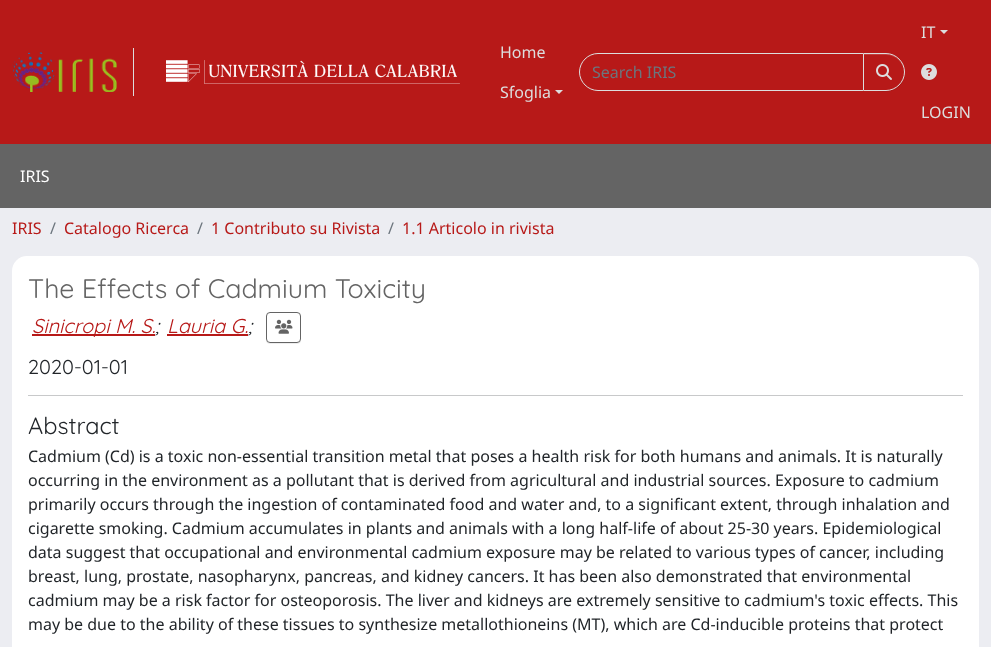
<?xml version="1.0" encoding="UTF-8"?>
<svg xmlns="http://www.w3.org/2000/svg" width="991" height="647">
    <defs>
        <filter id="blur1" x="-50%" y="-200%" width="200%" height="500%"><feGaussianBlur stdDeviation="0.5"/></filter>
        <clipPath id="clip1"><path d="M 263 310 H 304 V 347 H 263 Z M 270 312 H 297 C 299 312 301 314 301 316 V 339 C 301 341 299 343 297 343 H 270 C 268 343 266 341 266 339 V 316 C 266 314 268 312 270 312 Z" clip-rule="evenodd"/></clipPath>
    </defs>
    <rect width="100%" height="100%" fill="#ECEDF2"/>
    <rect x="0" y="0" width="991" height="144" fill="#B71918"/>
    <rect x="133" y="48" width="1" height="48" fill="#DDDDDD"/>
    <image x="12" y="52" width="105" height="40" href="img_01.png"/>
    <image x="166" y="60" width="294" height="24" href="img_02.png"/>
    <text x="500" y="58" font-family="Noto Sans" font-size="16" fill="#DDDDDD">Home</text>
    <text x="500" y="98" font-family="Noto Sans" font-size="16" fill="#DDDDDD">Sfoglia</text>
    <path d="M 555 90 H 563 L 559 94 Z" fill="#DDDDDD"/>
    <path d="M 598 53.5 H 863.5 V 90.5 H 598 C 588 90.5 579.5 82 579.5 72 C 579.5 62 588 53.5 598 53.5 Z" fill="none" stroke="#DDDDDD"/>
    <text x="592" y="78" font-family="Noto Sans" font-size="16" fill="#6C757D">Search IRIS</text>
    <rect x="863" y="54" width="42" height="38" rx="19" fill="#000000" fill-opacity="0.07" filter="url(#blur1)"/>
    <path d="M 863 53 H 886 C 896.5 53 905 61.5 905 72 C 905 82.5 896.5 91 886 91 H 863 Z" fill="#B71918"/>
    <path d="M 864 55 H 886 C 896 55 904 63 904 72 C 904 64 898 56 890 54 H 864 Z" fill="#C23C3B"/>
    <path d="M 863.5 53.5 H 886 C 896 53.5 904.5 62 904.5 72 C 904.5 82 896 90.5 886 90.5 H 863.5 Z" fill="none" stroke="#DDDDDD"/>
    <image x="876" y="64" width="16" height="16" href="img_03.png"/>
    <text x="921" y="38" font-family="Noto Sans" font-size="16" fill="#DDDDDD">IT</text>
    <path d="M 940 30 H 948 L 944 34 Z" fill="#DDDDDD"/>
    <image x="921" y="64" width="16" height="16" href="img_04.png"/>
    <text x="921" y="118" font-family="Noto Sans" font-size="16" fill="#DDDDDD">LOGIN</text>
    <rect x="0" y="144" width="991" height="64" fill="#646464"/>
    <text x="20" y="182" font-family="Noto Sans" font-size="16" fill="#FFFFFF">IRIS</text>
    <text x="12" y="234" font-family="Noto Sans" font-size="16" fill="#B71918">IRIS</text>
    <text x="50" y="234" font-family="Noto Sans" font-size="16" fill="#6C757D">/</text>
    <text x="64" y="234" font-family="Noto Sans" font-size="16" fill="#B71918">Catalogo Ricerca</text>
    <text x="197" y="234" font-family="Noto Sans" font-size="16" fill="#6C757D">/</text>
    <text x="211" y="234" font-family="Noto Sans" font-size="16" fill="#B71918">1 Contributo su Rivista</text>
    <text x="388" y="234" font-family="Noto Sans" font-size="16" fill="#6C757D">/</text>
    <text x="402" y="234" font-family="Noto Sans" font-size="16" fill="#B71918">1.1 Articolo in rivista</text>
    <rect x="12" y="256" width="967" height="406" rx="15" fill="#FFFFFF"/>
    <text x="28" y="298" font-family="Quicksand" font-size="26.75" font-weight="300" fill="#646464">The Effects of Cadmium Toxicity</text>
    <rect x="32" y="334" width="123" height="2" fill="#B71918"/>
    <text x="32" y="333" font-family="Quicksand" font-size="20" font-weight="300" font-style="italic" fill="#B71918">Sinicropi M. S.</text>
    <text x="155" y="333" font-family="Quicksand" font-size="20" font-weight="300" font-style="italic" fill="#212529">;</text>
    <text x="167" y="333" font-family="Quicksand" font-size="20" font-weight="300" font-style="italic" fill="#B71918">Lauria G.</text>
    <text x="248" y="333" font-family="Quicksand" font-size="20" font-weight="300" font-style="italic" fill="#212529">;</text>
    <rect x="167" y="334" width="81" height="2" fill="#B71918"/>
    <g clip-path="url(#clip1)">
        <rect x="266" y="313" width="35" height="31" rx="4" fill="#000000" fill-opacity="0.07" filter="url(#blur1)"/>
    </g>
    <rect x="266.5" y="312.5" width="34" height="30" rx="3.5" fill="none" stroke="#646464"/>
    <image x="275" y="319" width="18" height="15" href="img_05.png"/>
    <text x="28" y="374" font-family="Quicksand" font-size="20" font-weight="300" fill="#212529">2020-01-01</text>
    <rect x="28" y="395" width="935" height="1" fill="#C8C9CA"/>
    <text x="28" y="434" font-family="Quicksand" font-size="23.5" font-weight="300" fill="#212529">Abstract</text>
    <text font-family="Noto Sans" font-size="16" fill="#212529">
        <tspan x="28" y="462">Cadmium (Cd) is a toxic non-essential transition metal that poses a health risk for both humans and animals. It is naturally</tspan>
        <tspan x="28" y="486">occurring in the environment as a pollutant that is derived from agricultural and industrial sources. Exposure to cadmium</tspan>
        <tspan x="28" y="510">primarily occurs through the ingestion of contaminated food and water and, to a significant extent, through inhalation and</tspan>
        <tspan x="28" y="534">cigarette smoking. Cadmium accumulates in plants and animals with a long half-life of about 25-30 years. Epidemiological</tspan>
        <tspan x="28" y="558">data suggest that occupational and environmental cadmium exposure may be related to various types of cancer, including</tspan>
        <tspan x="28" y="582">breast, lung, prostate, nasopharynx, pancreas, and kidney cancers. It has been also demonstrated that environmental</tspan>
        <tspan x="28" y="606">cadmium may be a risk factor for osteoporosis. The liver and kidneys are extremely sensitive to cadmium's toxic effects. This</tspan>
        <tspan x="28" y="630">may be due to the ability of these tissues to synthesize metallothioneins (MT), which are Cd-inducible proteins that protect</tspan>
    </text>
</svg>
